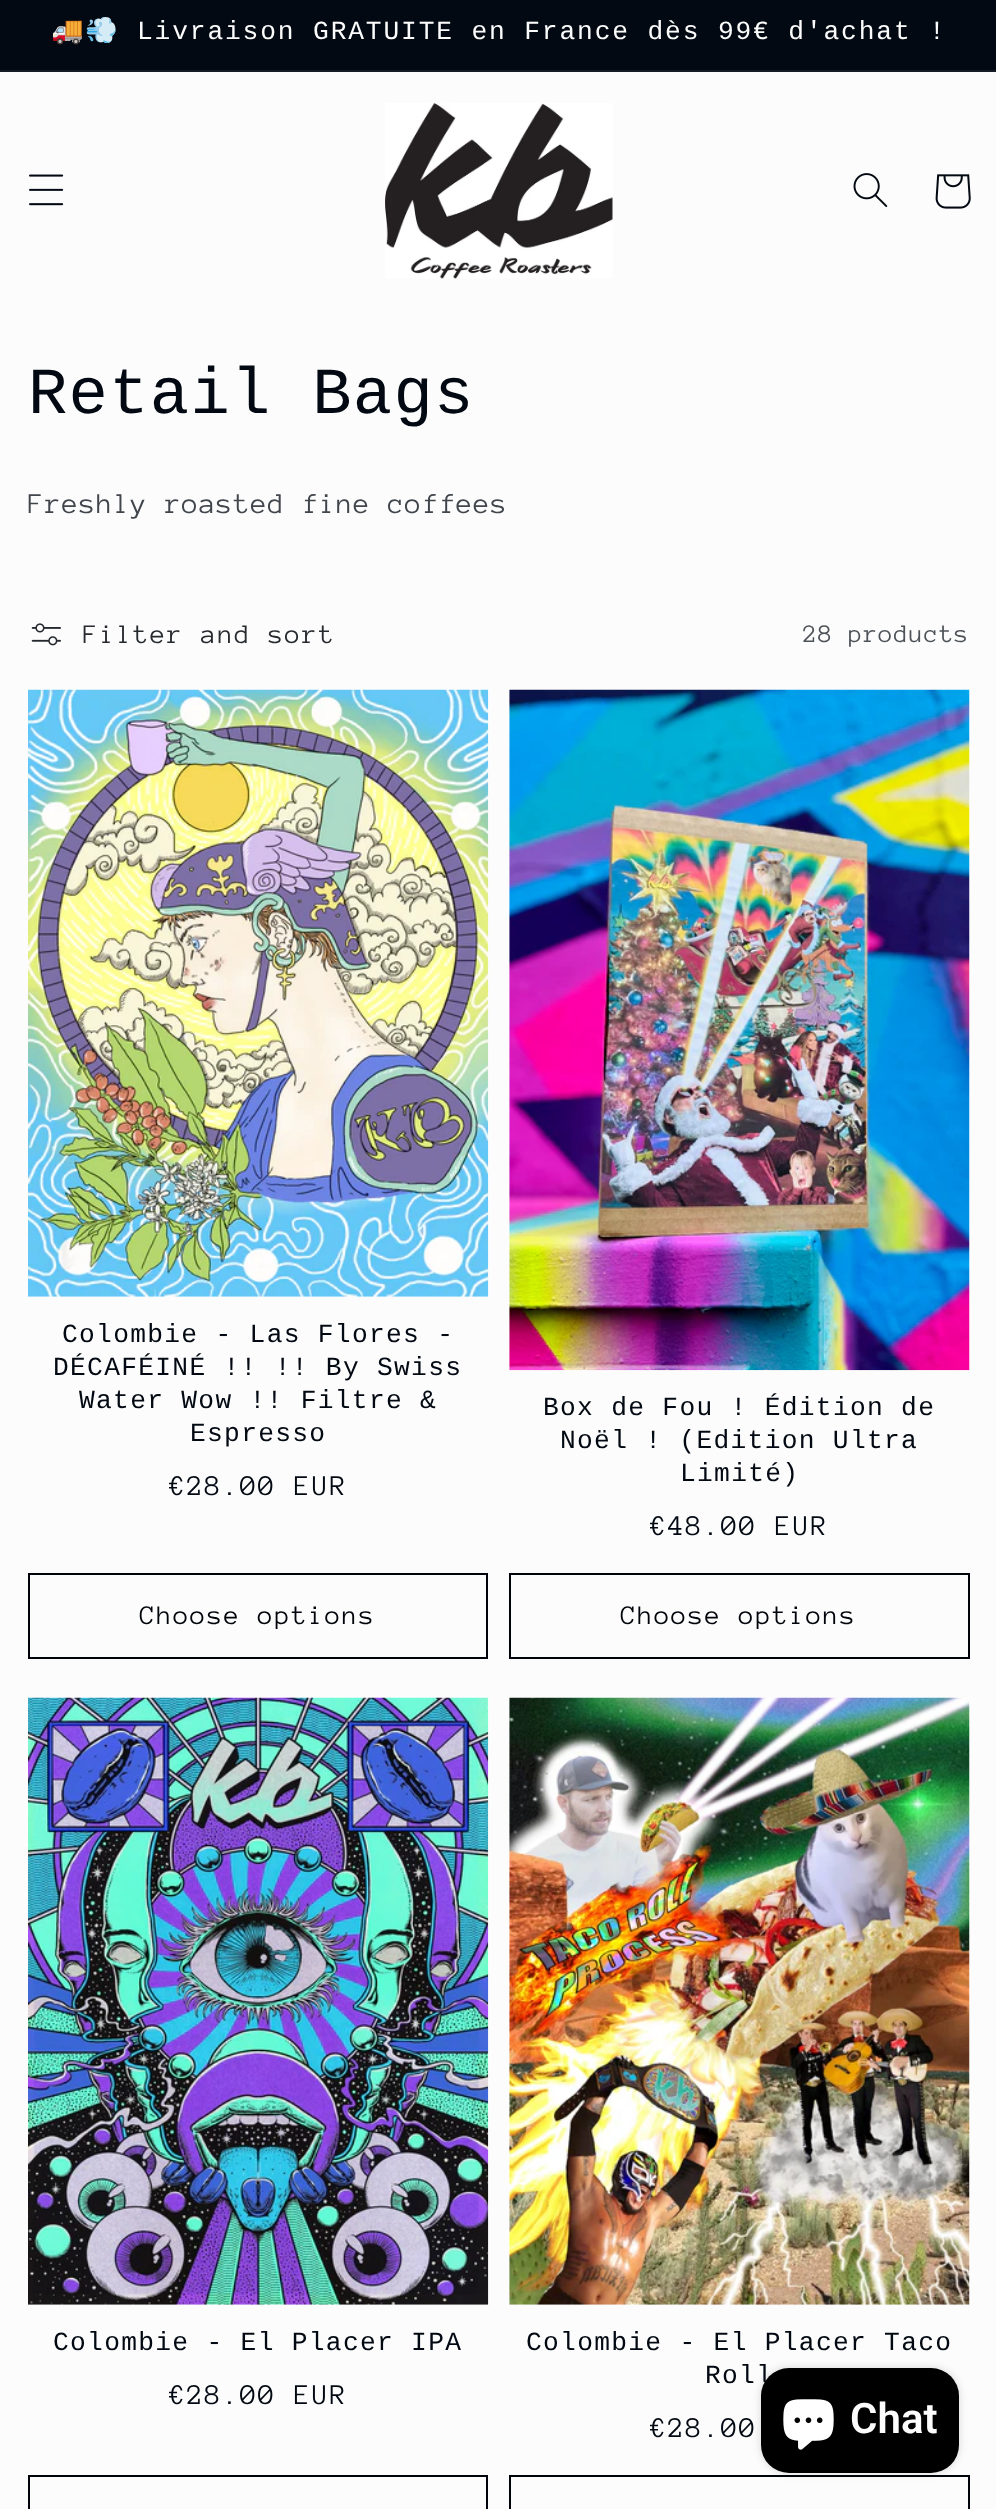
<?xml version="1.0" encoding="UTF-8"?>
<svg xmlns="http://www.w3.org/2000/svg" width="996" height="2509">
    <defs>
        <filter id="blur1" x="-50%" y="-200%" width="200%" height="500%"><feGaussianBlur stdDeviation="4.5"/></filter>
    </defs>
    <rect width="100%" height="100%" fill="#FCFCFC"/>
    <rect x="0" y="0" width="996" height="70" fill="#020912"/>
    <rect x="0" y="70" width="996" height="2" fill="#161C25"/>
    <text x="51" y="39" font-family="Noto Color Emoji" font-size="26.25" letter-spacing="1.85" fill="#FCFCFC">🚚💨</text>
    <text x="137" y="39" font-family="Liberation Mono" font-size="26.25" letter-spacing="1.85" fill="#FCFCFC">Livraison GRATUITE en France dès 99€ d'achat !</text>
    <image x="29" y="174" width="35" height="32" href="img_01.png"/>
    <image x="385" y="103" width="228" height="176" href="img_02.png"/>
    <image x="853" y="173" width="35" height="34" href="img_03.png"/>
    <image x="935" y="174" width="36" height="35" href="img_04.png"/>
    <text x="28" y="413" font-family="Liberation Mono" font-size="65.5" letter-spacing="1.3" fill="#020912">Retail Bags</text>
    <text x="28" y="513" font-family="Anonymous Pro" font-size="29.4" letter-spacing="1.1" fill="#41464D">Freshly roasted fine coffees</text>
    <image x="31" y="623" width="30" height="23" href="img_05.png"/>
    <text x="83" y="643" font-family="Anonymous Pro" font-size="27.5" letter-spacing="1.85" fill="#26292E">Filter and sort</text>
    <text x="803" y="642" font-family="Anonymous Pro" font-size="25.75" letter-spacing="1.1" fill="#4D5258">28 products</text>
    <image x="28" y="689" width="461" height="608" href="img_06.png"/>
    <text x="62" y="1342" font-family="Liberation Mono" font-size="26.25" letter-spacing="1.3" fill="#020912">Colombie - Las Flores -</text>
    <text x="53" y="1375" font-family="Liberation Mono" font-size="26.25" letter-spacing="1.3" fill="#020912">DÉCAFÉINÉ !! !! By Swiss</text>
    <text x="79" y="1408" font-family="Liberation Mono" font-size="26.25" letter-spacing="1.3" fill="#020912">Water Wow !! Filtre &amp;</text>
    <text x="190" y="1441" font-family="Liberation Mono" font-size="26.25" letter-spacing="1.3" fill="#020912">Espresso</text>
    <text x="169" y="1495" font-family="Anonymous Pro" font-size="29.4" letter-spacing="1.85" fill="#020912">€28.00 EUR</text>
    <rect x="29" y="1574" width="458" height="84" fill="none" stroke="#00040A" stroke-width="2"/>
    <text x="140" y="1624" font-family="Anonymous Pro" font-size="27.5" letter-spacing="1.85" fill="#00040A">Choose options</text>
    <image x="509" y="689" width="461" height="682" href="img_07.png"/>
    <text x="543" y="1415" font-family="Liberation Mono" font-size="26.25" letter-spacing="1.3" fill="#020912">Box de Fou ! Édition de</text>
    <text x="560" y="1448" font-family="Liberation Mono" font-size="26.25" letter-spacing="1.3" fill="#020912">Noël ! (Edition Ultra</text>
    <text x="680" y="1481" font-family="Liberation Mono" font-size="26.25" letter-spacing="1.3" fill="#020912">Limité)</text>
    <text x="650" y="1535" font-family="Anonymous Pro" font-size="29.4" letter-spacing="1.85" fill="#020912">€48.00 EUR</text>
    <rect x="510" y="1574" width="459" height="84" fill="none" stroke="#00040A" stroke-width="2"/>
    <text x="621" y="1624" font-family="Anonymous Pro" font-size="27.5" letter-spacing="1.85" fill="#00040A">Choose options</text>
    <image x="28" y="1697" width="461" height="608" href="img_08.png"/>
    <text x="53" y="2350" font-family="Liberation Mono" font-size="26.25" letter-spacing="1.3" fill="#020912">Colombie - El Placer IPA</text>
    <text x="169" y="2404" font-family="Anonymous Pro" font-size="29.4" letter-spacing="1.85" fill="#020912">€28.00 EUR</text>
    <rect x="29" y="2476" width="458" height="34" fill="none" stroke="#00040A" stroke-width="2"/>
    <image x="509" y="1697" width="461" height="608" href="img_09.png"/>
    <text x="526" y="2350" font-family="Liberation Mono" font-size="26.25" letter-spacing="1.3" fill="#020912">Colombie - El Placer Taco</text>
    <text x="705" y="2383" font-family="Liberation Mono" font-size="26.25" letter-spacing="1.3" fill="#020912">Roll</text>
    <text x="650" y="2437" font-family="Anonymous Pro" font-size="29.4" letter-spacing="1.85" fill="#020912">€28.00</text>
    <rect x="510" y="2476" width="459" height="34" fill="none" stroke="#00040A" stroke-width="2"/>
    <rect x="761" y="2368" width="198" height="105" rx="28" fill="#000000" fill-opacity="0.15" filter="url(#blur1)"/>
    <rect x="761" y="2368" width="198" height="105" rx="28" fill="#000000"/>
    <image x="783" y="2399" width="51" height="51" href="img_10.png"/>
    <text x="850" y="2433" font-family="Roboto" font-size="42" font-weight="600" fill="#FCFCFC">Chat</text>
</svg>
